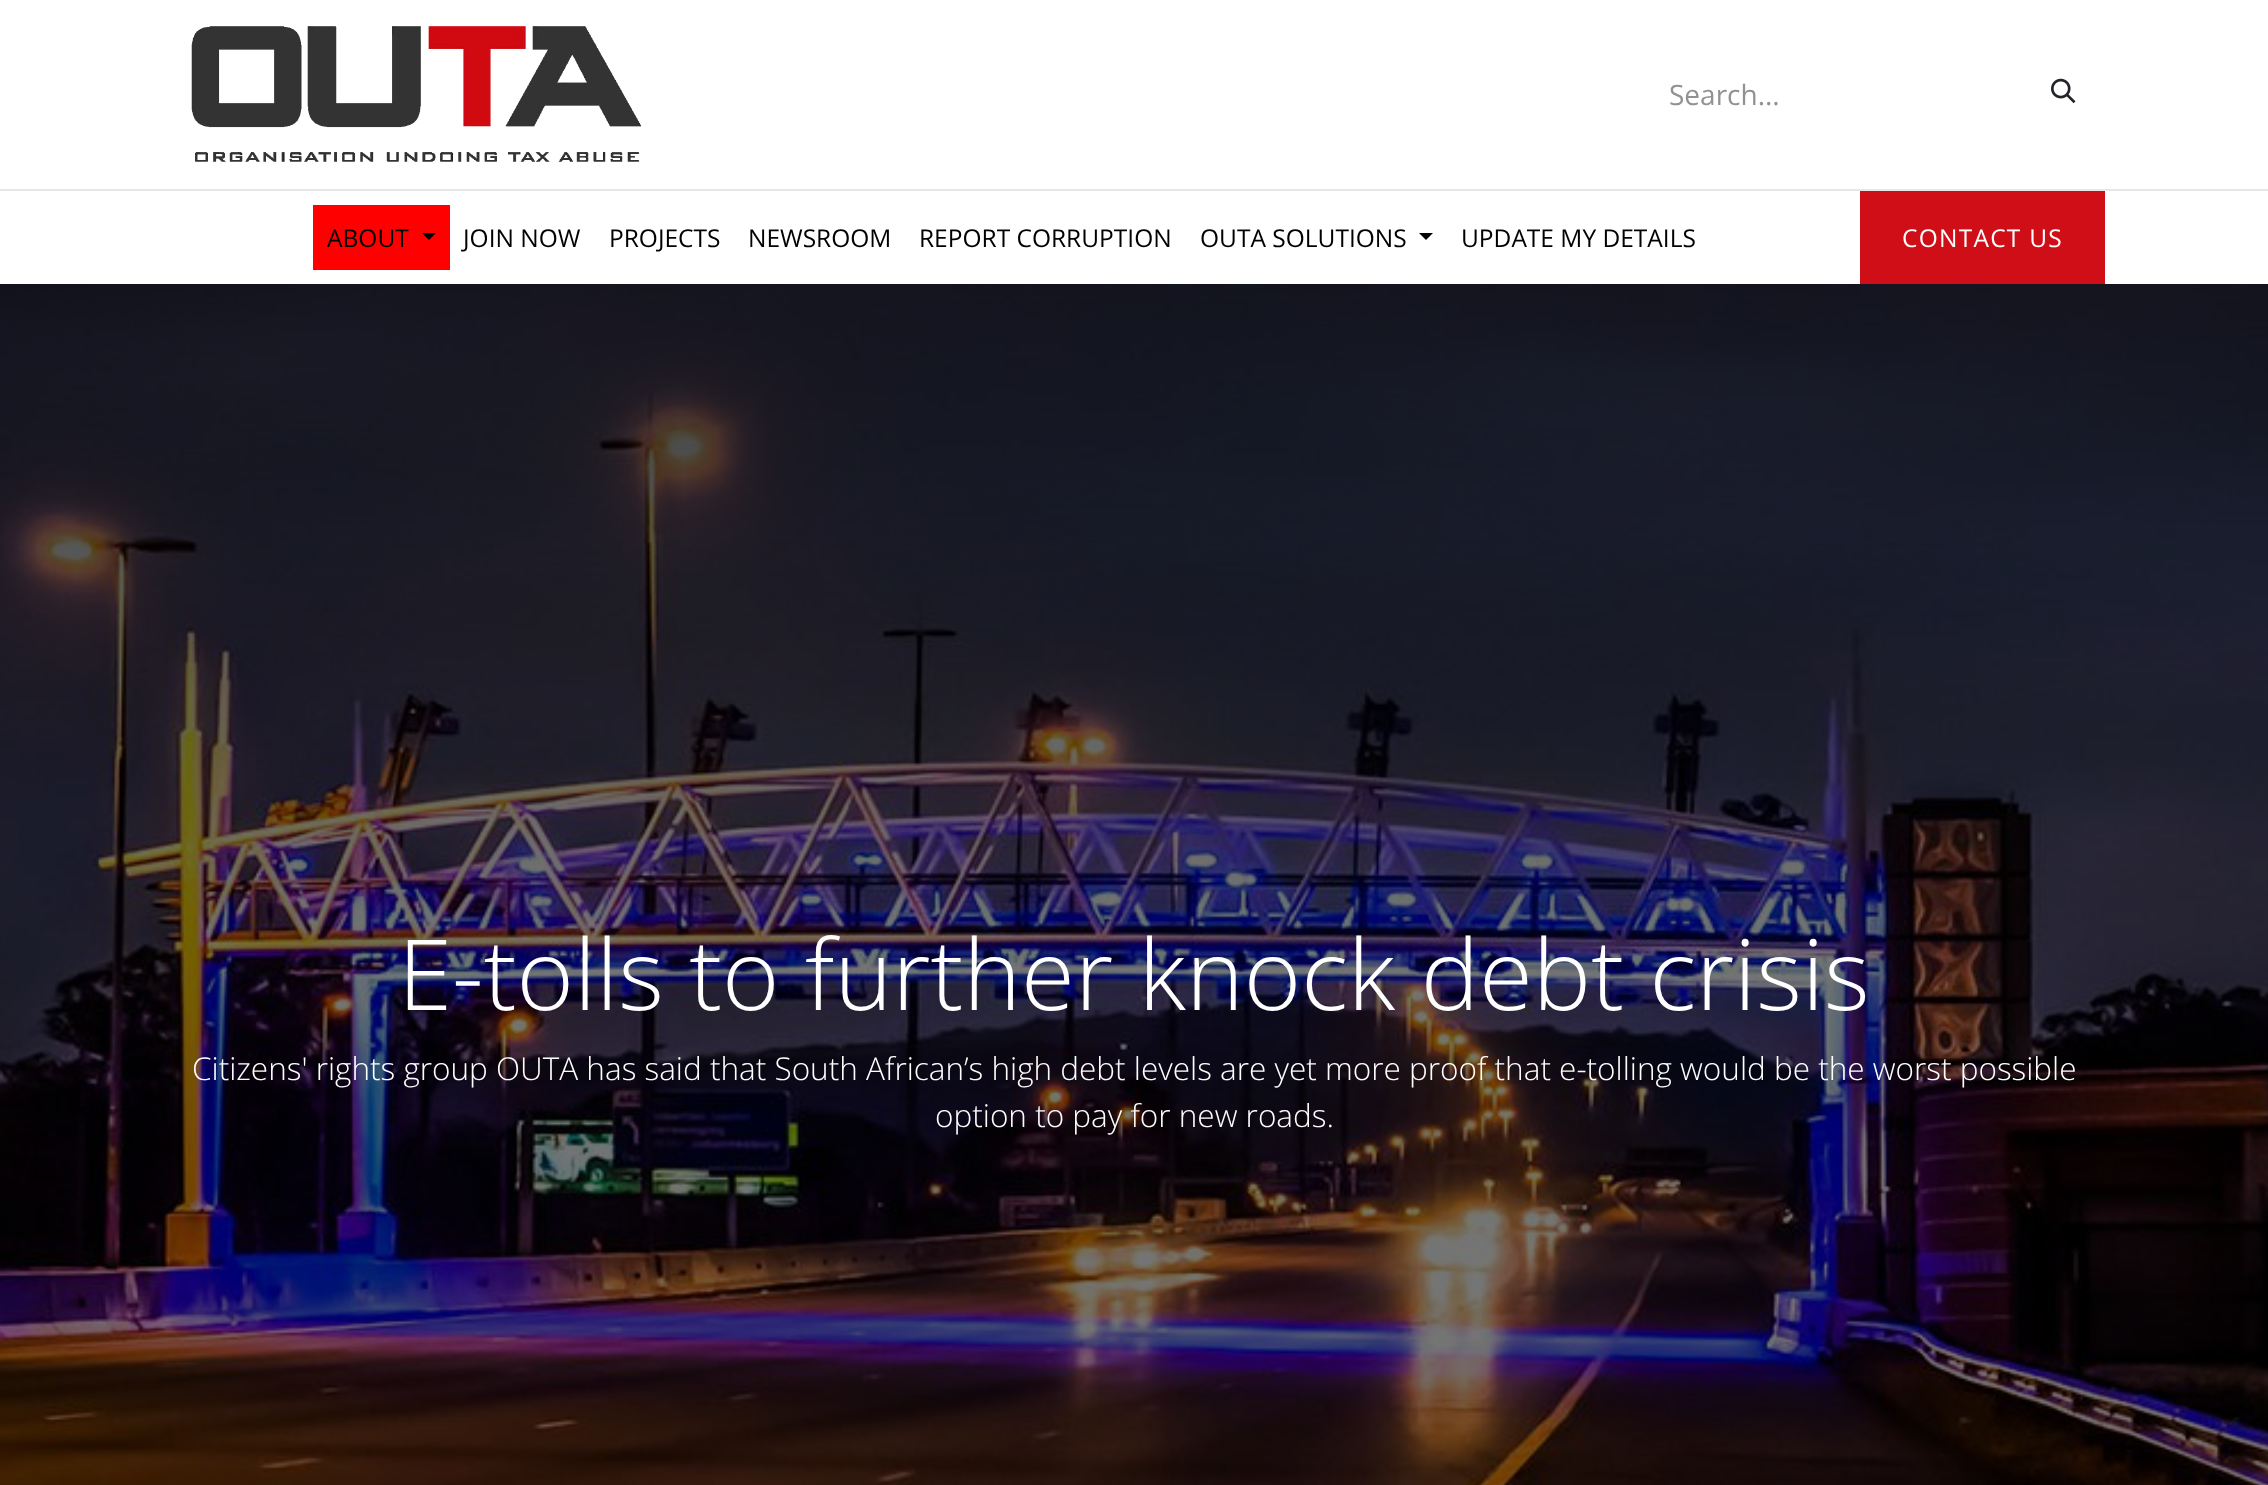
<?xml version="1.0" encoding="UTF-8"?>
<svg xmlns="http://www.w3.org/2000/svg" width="2268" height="1485">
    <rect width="100%" height="100%" fill="#FFFFFF"/>
    <image x="191" y="26" width="450" height="136" href="img_01.png"/>
    <text x="1669" y="105" font-family="Open Sans" font-size="28" fill="#909294">Search...</text>
    <image x="2051" y="78" width="25" height="26" href="img_02.png"/>
    <rect x="0" y="189" width="2268" height="2" fill="#E6E6E6"/>
    <rect x="313" y="205" width="137" height="65" fill="#FF0000"/>
    <text x="327" y="247" font-family="Open Sans" font-size="24.5" fill="#000000">ABOUT</text>
    <path d="M 422 233 H 436 L 429 240 Z" fill="#000000"/>
    <text x="463" y="247" font-family="Open Sans" font-size="24.5" fill="#000000">JOIN NOW</text>
    <text x="609" y="247" font-family="Open Sans" font-size="24.5" fill="#000000">PROJECTS</text>
    <text x="748" y="247" font-family="Open Sans" font-size="24.5" fill="#000000">NEWSROOM</text>
    <text x="919" y="247" font-family="Open Sans" font-size="24.5" fill="#000000">REPORT CORRUPTION</text>
    <text x="1200" y="247" font-family="Open Sans" font-size="24.5" fill="#000000">OUTA SOLUTIONS</text>
    <path d="M 1419 233 H 1433 L 1426 240 Z" fill="#000000"/>
    <text x="1461" y="247" font-family="Open Sans" font-size="24.5" fill="#000000">UPDATE MY DETAILS</text>
    <rect x="1860" y="191" width="245" height="93" fill="#D00E18"/>
    <text x="1902" y="247" font-family="Open Sans" font-size="24.5" letter-spacing="1.25" fill="#FFFFFF">CONTACT US</text>
    <image x="0" y="284" width="2268" height="1201" href="img_03.png"/>
    <text x="398" y="1010" font-family="Open Sans" font-size="98" font-weight="300" fill="#FFFFFF">E-tolls to further knock debt crisis</text>
    <text x="192" y="1080" font-family="Open Sans" font-size="31.5" font-weight="300" fill="#FFFFFF">Citizens' rights group OUTA has said that South African’s high debt levels are yet more proof that e-tolling would be the worst possible</text>
    <text x="935" y="1127" font-family="Open Sans" font-size="31.5" font-weight="300" fill="#FFFFFF">option to pay for new roads.</text>
</svg>
